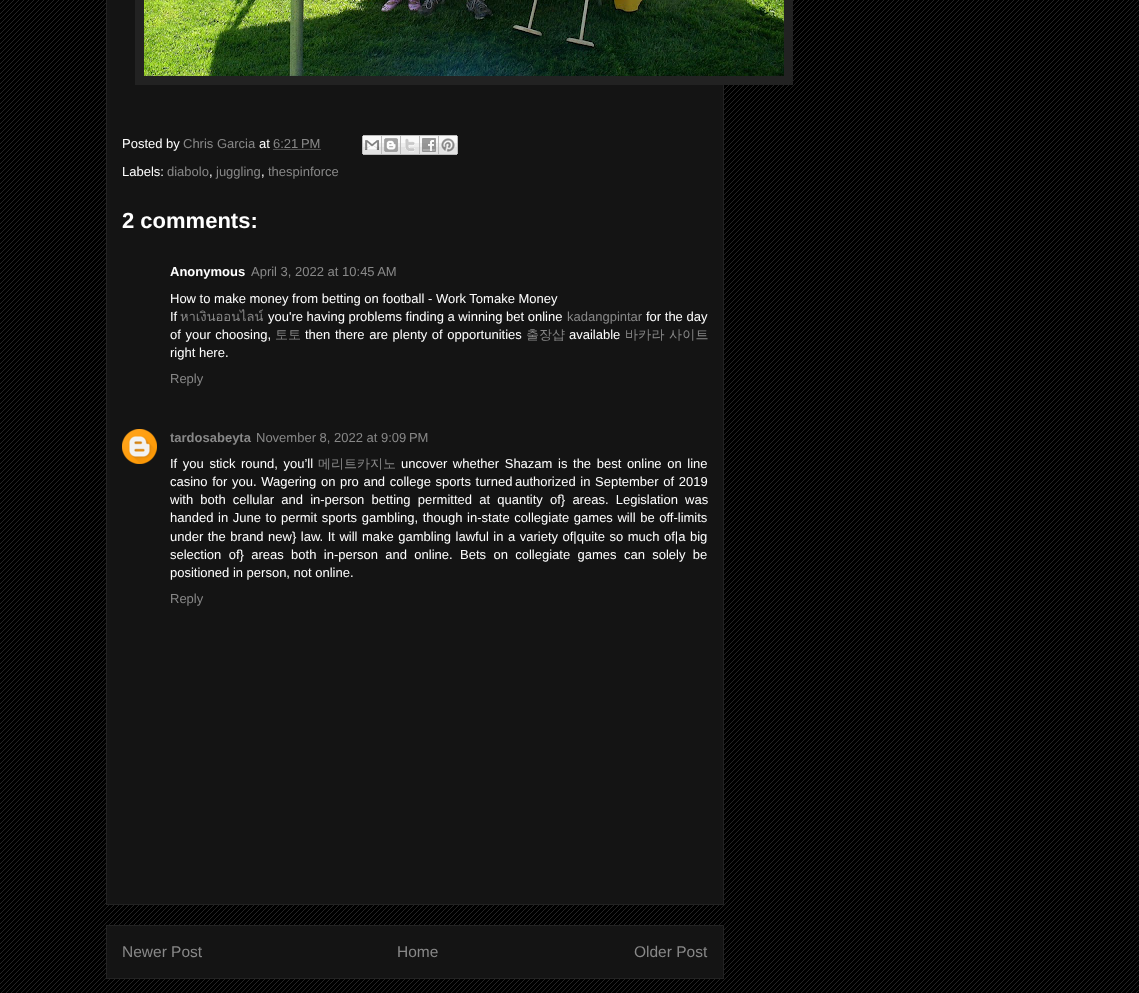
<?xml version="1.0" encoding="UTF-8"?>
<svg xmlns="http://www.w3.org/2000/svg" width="1139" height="993">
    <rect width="100%" height="100%" fill="#000000"/>
    <image x="0" y="0" width="1139" height="993" href="img_01.png"/>
    <rect x="106.5" y="-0.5" width="617" height="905" fill="#141414" stroke="#222222"/>
    <rect x="135" y="0" width="658" height="85" fill="#222222"/>
    <image x="144" y="0" width="640" height="76" href="img_02.png"/>
    <text x="122" y="148" font-family="Liberation Sans" font-size="13" fill="#FFFFFF">Posted by</text>
    <text x="183" y="148" font-family="Liberation Sans" font-size="13" fill="#888888">Chris Garcia</text>
    <text x="259" y="148" font-family="Liberation Sans" font-size="13" fill="#FFFFFF">at</text>
    <text x="273" y="148" font-family="Liberation Sans" font-size="13" fill="#888888">6:21 PM</text>
    <path d="M 273.5 149.5 H 320.5" fill="none" stroke="#888888" stroke-dasharray="1 1"/>
    <image x="362" y="135" width="20" height="20" href="img_03.png"/>
    <image x="382" y="135" width="19" height="20" href="img_04.png"/>
    <image x="401" y="135" width="19" height="20" href="img_05.png"/>
    <image x="420" y="135" width="19" height="20" href="img_06.png"/>
    <image x="439" y="135" width="19" height="20" href="img_07.png"/>
    <text x="122" y="176" font-family="Liberation Sans" font-size="13" fill="#FFFFFF">Labels:</text>
    <text x="167" y="176" font-family="Liberation Sans" font-size="13" fill="#888888">diabolo</text>
    <text x="209" y="176" font-family="Liberation Sans" font-size="13" fill="#FFFFFF">,</text>
    <text x="216" y="176" font-family="Liberation Sans" font-size="13" fill="#888888">juggling</text>
    <text x="261" y="176" font-family="Liberation Sans" font-size="13" fill="#FFFFFF">,</text>
    <text x="268" y="176" font-family="Liberation Sans" font-size="13" fill="#888888">thespinforce</text>
    <text x="122" y="228" font-family="Liberation Sans" font-size="22" font-weight="700" fill="#FFFFFF">2 comments:</text>
    <text x="170" y="276" font-family="Liberation Sans" font-size="13" font-weight="700" fill="#FFFFFF">Anonymous</text>
    <text x="251" y="276" font-family="Liberation Sans" font-size="13" fill="#888888">April 3, 2022 at 10:45 AM</text>
    <text font-family="Liberation Sans" font-size="13" fill="#FFFFFF">
        <tspan x="170" y="303">How to make money from betting on football - Work Tomake Money</tspan>
        <tspan x="170" y="321">If</tspan>
    </text>
    <text x="180" y="321" font-family="Loma" font-size="13" fill="#888888">หาเงินออนไลน์</text>
    <text x="268" y="321" font-family="Liberation Sans" font-size="13" fill="#FFFFFF">you're having problems finding a winning bet online</text>
    <text x="567" y="321" font-family="Liberation Sans" font-size="13" fill="#888888">kadangpintar</text>
    <text x="646" y="321" font-family="Liberation Sans" font-size="13" fill="#FFFFFF">for the day</text>
    <text x="170" y="339" word-spacing="1" font-family="Liberation Sans" font-size="13" fill="#FFFFFF">of your choosing,</text>
    <text x="275" y="339" font-family="WenQuanYi Zen Hei" font-size="13" font-weight="500" fill="#888888">토토</text>
    <text x="305" y="339" word-spacing="1" font-family="Liberation Sans" font-size="13" fill="#FFFFFF">then there are plenty of opportunities</text>
    <text x="526" y="339" font-family="WenQuanYi Zen Hei" font-size="13" font-weight="500" fill="#888888">출장샵</text>
    <text x="569" y="339" font-family="Liberation Sans" font-size="13" fill="#FFFFFF">available</text>
    <text x="625" y="339" font-family="WenQuanYi Zen Hei" font-size="13" font-weight="500" letter-spacing="0.25" fill="#888888">바카라 사이트</text>
    <text x="170" y="357" font-family="Liberation Sans" font-size="13" fill="#FFFFFF">right here.</text>
    <text x="170" y="383" font-family="Liberation Sans" font-size="13" fill="#888888">Reply</text>
    <image x="122" y="429" width="35" height="35" href="img_08.png"/>
    <text x="170" y="442" font-family="Liberation Sans" font-size="13" font-weight="700" fill="#888888">tardosabeyta</text>
    <text x="256" y="442" font-family="Liberation Sans" font-size="13" fill="#888888">November 8, 2022 at 9:09 PM</text>
    <text x="170" y="468" word-spacing="2" font-family="Liberation Sans" font-size="13" fill="#FFFFFF">If you stick round, you’ll</text>
    <text x="318" y="468" font-family="WenQuanYi Zen Hei" font-size="13" font-weight="500" fill="#888888">메리트카지노</text>
    <text x="401" y="468" word-spacing="2" font-family="Liberation Sans" font-size="13" fill="#FFFFFF">uncover whether Shazam is the best online on line</text>
    <text x="170" y="486" word-spacing="1" font-family="Liberation Sans" font-size="13" fill="#FFFFFF">casino for you. Wagering on pro and college sports turned</text>
    <text x="515" y="486" word-spacing="1" font-family="Liberation Sans" font-size="13" fill="#FFFFFF">authorized in September of 2019</text>
    <text font-family="Liberation Sans" font-size="13" fill="#FFFFFF">
        <tspan x="170" y="504" word-spacing="3.6">with both cellular and in-person betting permitted at quantity of} areas. Legislation was</tspan>
        <tspan x="170" y="522" word-spacing="1">handed in June to permit sports gambling, though in-state collegiate games will be off-limits</tspan>
        <tspan x="170" y="541" word-spacing="0.9">under the brand new} law. It will make gambling lawful in a variety of|quite so much of|a big</tspan>
        <tspan x="170" y="559" word-spacing="3.75">selection of} areas both in-person and online. Bets on collegiate games can solely be</tspan>
        <tspan x="170" y="577">positioned in person, not online.</tspan>
    </text>
    <text x="170" y="603" font-family="Liberation Sans" font-size="13" fill="#888888">Reply</text>
    <rect x="106.5" y="925.5" width="617" height="53" fill="#141414" stroke="#222222"/>
    <text x="122" y="957" font-family="Liberation Sans" font-size="15.5" fill="#888888">Newer Post</text>
    <text x="397" y="957" font-family="Liberation Sans" font-size="15.5" fill="#888888">Home</text>
    <text x="634" y="957" font-family="Liberation Sans" font-size="15.5" fill="#888888">Older Post</text>
</svg>
